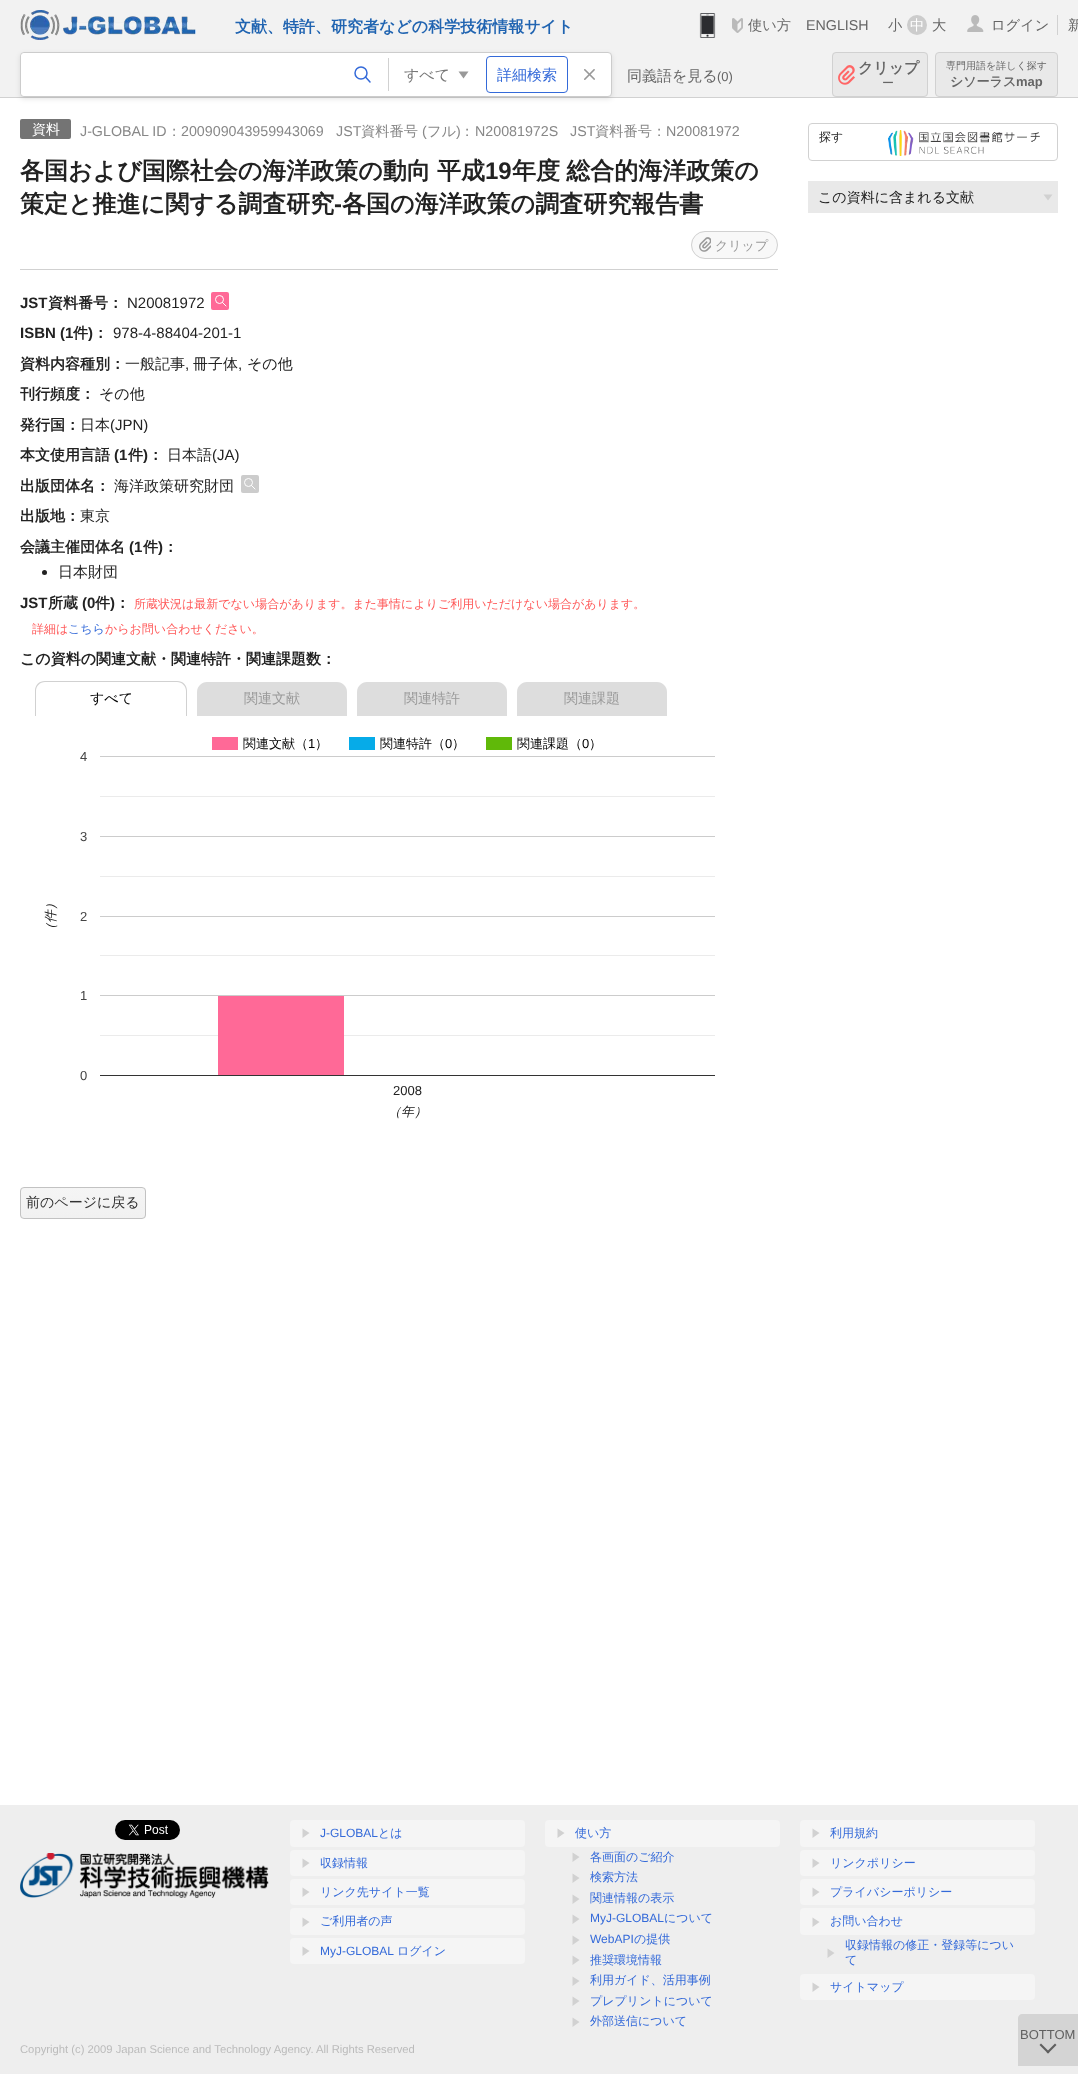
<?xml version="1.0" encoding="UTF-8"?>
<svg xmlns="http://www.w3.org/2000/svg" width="1078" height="2074">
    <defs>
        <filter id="blur1" x="-50%" y="-200%" width="200%" height="500%"><feGaussianBlur stdDeviation="2.5"/></filter>
        <clipPath id="clip1"><rect x="21" y="53" width="590" height="43" rx="3"/></clipPath>
        <clipPath id="clip2"><rect x="20" y="1187" width="126" height="32" rx="4"/></clipPath>
        <linearGradient id="g1" gradientUnits="userSpaceOnUse" x1="83" y1="1188" x2="83" y2="1218"><stop offset="0" stop-color="#F5F5F5"/><stop offset="1" stop-color="#F1F1F1"/></linearGradient>
    </defs>
    <rect width="100%" height="100%" fill="#FFFFFF"/>
    <rect x="0" y="0" width="1078" height="97" fill="#F2F2F2"/>
    <image x="20" y="10" width="176" height="30" href="img_01.png"/>
    <text x="235" y="32" font-family="WenQuanYi Zen Hei" font-size="16" font-weight="700" fill="#2064B1">文献、特許、研究者などの科学技術情報サイト</text>
    <image x="699" y="13" width="17" height="25" href="img_02.png"/>
    <image x="732" y="18" width="11" height="15" href="img_03.png"/>
    <text x="748" y="30" font-family="WenQuanYi Zen Hei" font-size="14.25" font-weight="500" fill="#666666">使い方</text>
    <text x="806" y="30" font-family="Liberation Sans" font-size="14.25" fill="#666666">ENGLISH</text>
    <text x="888" y="30" font-family="WenQuanYi Zen Hei" font-size="14.25" font-weight="500" fill="#666666">小</text>
    <circle cx="917" cy="25" r="10" fill="#CCCCCC"/>
    <text x="910" y="30" font-family="WenQuanYi Zen Hei" font-size="14.25" font-weight="500" fill="#FFFFFF">中</text>
    <text x="932" y="30" font-family="WenQuanYi Zen Hei" font-size="14.25" font-weight="500" fill="#666666">大</text>
    <image x="967" y="15" width="17" height="17" href="img_04.png"/>
    <rect x="1057" y="15" width="1" height="20" fill="#D1D1D1"/>
    <text x="991" y="30" font-family="WenQuanYi Zen Hei" font-size="14.25" font-weight="500" fill="#666666">ログイン</text>
    <text x="1068" y="30" font-family="WenQuanYi Zen Hei" font-size="14.25" font-weight="500" fill="#666666">新</text>
    <rect x="0" y="97" width="1078" height="1" fill="#D1D1D1"/>
    <rect x="20" y="54" width="592" height="45" rx="4" fill="#000000" fill-opacity="0.1" filter="url(#blur1)"/>
    <rect x="20.5" y="52.5" width="591" height="44" rx="3.5" fill="#FFFFFF" stroke="#CCCCCC"/>
    <g clip-path="url(#clip1)">
        <rect x="21" y="53" width="317" height="43" rx="4" fill="#FFFFFF"/>
    </g>
    <circle cx="361" cy="73" r="6" fill="none" stroke="#346AD9" stroke-width="1.5"/>
    <path d="M 365.5 77 L 370 82" fill="none" stroke="#346AD9" stroke-width="1.5" stroke-linecap="round" stroke-linejoin="round"/>
    <path d="M 468.5 71.5 L 463.5 78.5 L 458.5 71.5 Z" fill="#999999"/>
    <rect x="388" y="58" width="1" height="33" fill="#D1D1D1"/>
    <text x="404" y="80" font-family="WenQuanYi Zen Hei" font-size="15" font-weight="500" fill="#777777">すべて</text>
    <rect x="486.5" y="56.5" width="81" height="36" rx="3.5" fill="none" stroke="#346AD9"/>
    <text x="497" y="80" font-family="WenQuanYi Zen Hei" font-size="15" font-weight="500" fill="#346AD9">詳細検索</text>
    <image x="584" y="69" width="11" height="11" href="img_05.png"/>
    <text x="627" y="81" font-family="WenQuanYi Zen Hei" font-size="15" font-weight="500" fill="#666666">同義語を見る</text>
    <text x="717" y="81" font-family="Liberation Sans" font-size="13" fill="#666666">(0)</text>
    <rect x="832" y="52" width="96" height="45" rx="4" fill="#E9E9E9"/>
    <image x="838" y="65" width="17" height="20" href="img_06.png"/>
    <rect x="832.5" y="52.5" width="95" height="44" rx="3.5" fill="none" stroke="#D1D1D1"/>
    <text x="858" y="73" font-family="WenQuanYi Zen Hei" font-size="15" font-weight="700" fill="#666666">クリップ</text>
    <text x="882" y="87" font-family="WenQuanYi Zen Hei" font-size="12" font-weight="500" fill="#666666">ー</text>
    <rect x="935.5" y="52.5" width="122" height="44" rx="3.5" fill="#E9E9E9" stroke="#D1D1D1"/>
    <text x="946" y="69" font-family="WenQuanYi Zen Hei" font-size="10" font-weight="500" fill="#666666">専門用語を詳しく探す</text>
    <text x="950" y="86" font-family="WenQuanYi Zen Hei" font-size="13" font-weight="700" fill="#666666">シソーラス</text>
    <text x="1016" y="86" font-family="Liberation Sans" font-size="13" font-weight="700" fill="#666666">map</text>
    <rect x="20" y="269" width="758" height="1" fill="#D1D1D1"/>
    <rect x="20" y="119" width="51" height="20" rx="2" fill="#747474"/>
    <text x="32" y="134" font-family="WenQuanYi Zen Hei" font-size="14" font-weight="500" fill="#FFFFFF">資料</text>
    <text x="80" y="136" font-family="Liberation Sans" font-size="14.25" fill="#888888">J-GLOBAL ID</text>
    <text x="167" y="136" font-family="WenQuanYi Zen Hei" font-size="14.25" font-weight="500" fill="#888888">：</text>
    <text x="181" y="136" font-family="Liberation Sans" font-size="14.25" fill="#888888">200909043959943069</text>
    <text x="336" y="136" font-family="Liberation Sans" font-size="14.25" fill="#888888">JST</text>
    <text x="361" y="136" font-family="WenQuanYi Zen Hei" font-size="14.25" font-weight="500" fill="#888888">資料番号</text>
    <text x="422" y="136" font-family="Liberation Sans" font-size="14.25" fill="#888888">(</text>
    <text x="427" y="136" font-family="WenQuanYi Zen Hei" font-size="14.25" font-weight="500" fill="#888888">フル</text>
    <text x="456" y="136" font-family="Liberation Sans" font-size="14.25" fill="#888888">)</text>
    <text x="460" y="136" font-family="WenQuanYi Zen Hei" font-size="14.25" font-weight="500" fill="#888888">：</text>
    <text x="475" y="136" font-family="Liberation Sans" font-size="14.25" fill="#888888">N20081972S</text>
    <text x="570" y="136" font-family="Liberation Sans" font-size="14.25" fill="#888888">JST</text>
    <text x="595" y="136" font-family="WenQuanYi Zen Hei" font-size="14.25" font-weight="500" fill="#888888">資料番号：</text>
    <text x="666" y="136" font-family="Liberation Sans" font-size="14.25" fill="#888888">N20081972</text>
    <text x="20" y="179" word-spacing="-1" font-family="WenQuanYi Zen Hei" font-size="24" font-weight="700" fill="#222222">各国および国際社会の海洋政策の動向 平成</text>
    <text x="485" y="179" font-family="Liberation Sans" font-size="24" font-weight="700" fill="#222222">19</text>
    <text x="512" y="179" word-spacing="-1" font-family="WenQuanYi Zen Hei" font-size="24" font-weight="700" fill="#222222">年度 総合的海洋政策の</text>
    <text x="20" y="212" font-family="WenQuanYi Zen Hei" font-size="24" font-weight="700" fill="#222222">策定と推進に関する調査研究</text>
    <text x="334" y="212" font-family="Liberation Sans" font-size="24" font-weight="700" fill="#222222">-</text>
    <text x="342" y="212" font-family="WenQuanYi Zen Hei" font-size="24" font-weight="700" fill="#222222">各国の海洋政策の調査研究報告書</text>
    <rect x="691" y="231" width="87" height="28" rx="14" fill="#F8F8F8"/>
    <image x="699" y="237" width="12" height="15" href="img_07.png"/>
    <rect x="691.5" y="231.5" width="86" height="27" rx="13.5" fill="none" stroke="#D1D1D1"/>
    <text x="715" y="250" font-family="WenQuanYi Zen Hei" font-size="13" font-weight="500" fill="#999999">クリップ</text>
    <text x="20" y="308" font-family="Liberation Sans" font-size="15" font-weight="700" fill="#222222">JST</text>
    <text x="48" y="308" font-family="WenQuanYi Zen Hei" font-size="15" font-weight="700" fill="#222222">資料番号：</text>
    <text x="127" y="308" font-family="Liberation Sans" font-size="15" fill="#222222">N20081972</text>
    <rect x="211" y="292" width="18" height="18" rx="2" fill="#FF6997"/>
    <circle cx="219.5" cy="299.5" r="4" fill="none" stroke="#FFFFFF"/>
    <path d="M 222.5 302.5 L 226 306" fill="none" stroke="#FFFFFF" stroke-linecap="round" stroke-linejoin="round"/>
    <text x="20" y="338" font-family="Liberation Sans" font-size="15" font-weight="700" fill="#222222">ISBN (1</text>
    <text x="73" y="338" font-family="WenQuanYi Zen Hei" font-size="15" font-weight="700" fill="#222222">件</text>
    <text x="88" y="338" font-family="Liberation Sans" font-size="15" font-weight="700" fill="#222222">)</text>
    <text x="93" y="338" font-family="WenQuanYi Zen Hei" font-size="15" font-weight="700" fill="#222222">：</text>
    <text x="113" y="338" font-family="Liberation Sans" font-size="15" fill="#222222">978-4-88404-201-1</text>
    <text x="20" y="369" font-family="WenQuanYi Zen Hei" font-size="15" font-weight="700" fill="#222222">資料内容種別：</text>
    <text x="125" y="369" font-family="WenQuanYi Zen Hei" font-size="15" font-weight="500" fill="#222222">一般記事</text>
    <text x="185" y="369" font-family="Liberation Sans" font-size="15" fill="#222222">,</text>
    <text x="193" y="369" font-family="WenQuanYi Zen Hei" font-size="15" font-weight="500" fill="#222222">冊子体</text>
    <text x="238" y="369" font-family="Liberation Sans" font-size="15" fill="#222222">,</text>
    <text x="247" y="369" font-family="WenQuanYi Zen Hei" font-size="15" font-weight="500" fill="#222222">その他</text>
    <text x="20" y="399" font-family="WenQuanYi Zen Hei" font-size="15" font-weight="700" fill="#222222">刊行頻度：</text>
    <text x="99" y="399" font-family="WenQuanYi Zen Hei" font-size="15" font-weight="500" fill="#222222">その他</text>
    <text x="20" y="430" font-family="WenQuanYi Zen Hei" font-size="15" font-weight="700" fill="#222222">発行国：</text>
    <text x="80" y="430" font-family="WenQuanYi Zen Hei" font-size="15" font-weight="500" fill="#222222">日本</text>
    <text x="110" y="430" font-family="Liberation Sans" font-size="15" fill="#222222">(JPN)</text>
    <text x="20" y="460" font-family="WenQuanYi Zen Hei" font-size="15" font-weight="700" fill="#222222">本文使用言語</text>
    <text x="114" y="460" font-family="Liberation Sans" font-size="15" font-weight="700" fill="#222222">(1</text>
    <text x="128" y="460" font-family="WenQuanYi Zen Hei" font-size="15" font-weight="700" fill="#222222">件</text>
    <text x="143" y="460" font-family="Liberation Sans" font-size="15" font-weight="700" fill="#222222">)</text>
    <text x="148" y="460" font-family="WenQuanYi Zen Hei" font-size="15" font-weight="700" fill="#222222">：</text>
    <text x="167" y="460" font-family="WenQuanYi Zen Hei" font-size="15" font-weight="500" fill="#222222">日本語</text>
    <text x="212" y="460" font-family="Liberation Sans" font-size="15" fill="#222222">(JA)</text>
    <text x="20" y="491" font-family="WenQuanYi Zen Hei" font-size="15" font-weight="700" fill="#222222">出版団体名：</text>
    <text x="114" y="491" font-family="WenQuanYi Zen Hei" font-size="15" font-weight="500" fill="#222222">海洋政策研究財団</text>
    <rect x="241" y="475" width="18" height="18" rx="2" fill="#CCCCCC"/>
    <circle cx="248.5" cy="482.5" r="4" fill="none" stroke="#FFFFFF"/>
    <path d="M 251.5 485.5 L 255 489" fill="none" stroke="#FFFFFF" stroke-linecap="round" stroke-linejoin="round"/>
    <text x="20" y="521" font-family="WenQuanYi Zen Hei" font-size="15" font-weight="700" fill="#222222">出版地：</text>
    <text x="80" y="521" font-family="WenQuanYi Zen Hei" font-size="15" font-weight="500" fill="#222222">東京</text>
    <text x="20" y="552" font-family="WenQuanYi Zen Hei" font-size="15" font-weight="700" fill="#222222">会議主催団体名</text>
    <text x="129" y="552" font-family="Liberation Sans" font-size="15" font-weight="700" fill="#222222">(1</text>
    <text x="143" y="552" font-family="WenQuanYi Zen Hei" font-size="15" font-weight="700" fill="#222222">件</text>
    <text x="158" y="552" font-family="Liberation Sans" font-size="15" font-weight="700" fill="#222222">)</text>
    <text x="163" y="552" font-family="WenQuanYi Zen Hei" font-size="15" font-weight="700" fill="#222222">：</text>
    <circle cx="44.5" cy="572.5" r="2.5" fill="#222222"/>
    <text x="58" y="577" font-family="WenQuanYi Zen Hei" font-size="15" font-weight="500" fill="#222222">日本財団</text>
    <text x="20" y="608" font-family="Liberation Sans" font-size="15" font-weight="700" fill="#222222">JST</text>
    <text x="48" y="608" font-family="WenQuanYi Zen Hei" font-size="15" font-weight="700" fill="#222222">所蔵</text>
    <text x="82" y="608" font-family="Liberation Sans" font-size="15" font-weight="700" fill="#222222">(0</text>
    <text x="95" y="608" font-family="WenQuanYi Zen Hei" font-size="15" font-weight="700" fill="#222222">件</text>
    <text x="110" y="608" font-family="Liberation Sans" font-size="15" font-weight="700" fill="#222222">)</text>
    <text x="115" y="608" font-family="WenQuanYi Zen Hei" font-size="15" font-weight="700" fill="#222222">：</text>
    <text x="134" y="608" font-family="WenQuanYi Zen Hei" font-size="12" font-weight="500" fill="#FF5858">所蔵状況は最新でない場合があります。また事情によりご利用いただけない場合があります。</text>
    <text x="32" y="633" font-family="WenQuanYi Zen Hei" font-size="12" font-weight="500" fill="#FF5858">詳細は</text>
    <text x="68" y="633" font-family="WenQuanYi Zen Hei" font-size="12" font-weight="500" fill="#346AD9">こちら</text>
    <text x="105" y="633" font-family="WenQuanYi Zen Hei" font-size="12" font-weight="500" fill="#FF5858">からお問い合わせください。</text>
    <text x="20" y="664" font-family="WenQuanYi Zen Hei" font-size="15" font-weight="700" fill="#222222">この資料の関連文献・関連特許・関連課題数：</text>
    <path d="M 45 681 H 177 C 183 681 187 685 187 691 V 716 H 35 V 691 C 35 685 39 681 45 681 Z M 45 682 H 177 C 182 682 186 686 186 691 V 716 H 36 V 691 C 36 686 40 682 45 682 Z" fill="#D1D1D1" fill-rule="evenodd"/>
    <text x="90" y="703" font-family="WenQuanYi Zen Hei" font-size="14" font-weight="500" fill="#000000">すべて</text>
    <path d="M 207 682 H 337 C 342.5 682 347 686.5 347 692 V 716 H 197 V 692 C 197 686.5 201.5 682 207 682 Z" fill="#DDDDDD"/>
    <text x="244" y="703" font-family="WenQuanYi Zen Hei" font-size="14" font-weight="500" fill="#999999">関連文献</text>
    <path d="M 367 682 H 497 C 502.5 682 507 686.5 507 692 V 716 H 357 V 692 C 357 686.5 361.5 682 367 682 Z" fill="#DDDDDD"/>
    <text x="404" y="703" font-family="WenQuanYi Zen Hei" font-size="14" font-weight="500" fill="#999999">関連特許</text>
    <path d="M 527 682 H 657 C 662.5 682 667 686.5 667 692 V 716 H 517 V 692 C 517 686.5 521.5 682 527 682 Z" fill="#DDDDDD"/>
    <text x="564" y="703" font-family="WenQuanYi Zen Hei" font-size="14" font-weight="500" fill="#999999">関連課題</text>
    <text x="243" y="748" font-family="WenQuanYi Zen Hei" font-size="13" font-weight="500" fill="#000000">関連文献（</text>
    <rect x="212" y="737" width="26" height="13" fill="#FF6997"/>
    <text x="308" y="748" font-family="Liberation Sans" font-size="13" fill="#000000">1</text>
    <text x="315" y="748" font-family="WenQuanYi Zen Hei" font-size="13" font-weight="500" fill="#000000">）</text>
    <text x="380" y="748" font-family="WenQuanYi Zen Hei" font-size="13" font-weight="500" fill="#000000">関連特許（</text>
    <rect x="349" y="737" width="26" height="13" fill="#06ABE8"/>
    <text x="445" y="748" font-family="Liberation Sans" font-size="13" fill="#000000">0</text>
    <text x="452" y="748" font-family="WenQuanYi Zen Hei" font-size="13" font-weight="500" fill="#000000">）</text>
    <text x="517" y="748" font-family="WenQuanYi Zen Hei" font-size="13" font-weight="500" fill="#000000">関連課題（</text>
    <rect x="486" y="737" width="26" height="13" fill="#60B909"/>
    <text x="582" y="748" font-family="Liberation Sans" font-size="13" fill="#000000">0</text>
    <text x="589" y="748" font-family="WenQuanYi Zen Hei" font-size="13" font-weight="500" fill="#000000">）</text>
    <text x="80" y="761" font-family="Liberation Sans" font-size="13" fill="#444444">4</text>
    <rect x="100" y="756" width="615" height="1" fill="#CCCCCC"/>
    <text x="80" y="841" font-family="Liberation Sans" font-size="13" fill="#444444">3</text>
    <rect x="100" y="836" width="615" height="1" fill="#CCCCCC"/>
    <rect x="100" y="796" width="615" height="1" fill="#EBEBEB"/>
    <text x="55" y="936" transform="rotate(-90 55 936)" font-family="WenQuanYi Zen Hei" font-size="13" font-weight="500" font-style="italic" fill="#222222">（件）</text>
    <text x="80" y="921" font-family="Liberation Sans" font-size="13" fill="#444444">2</text>
    <rect x="100" y="916" width="615" height="1" fill="#CCCCCC"/>
    <rect x="100" y="955" width="615" height="1" fill="#EBEBEB"/>
    <rect x="100" y="876" width="615" height="1" fill="#EBEBEB"/>
    <text x="80" y="1000" font-family="Liberation Sans" font-size="13" fill="#444444">1</text>
    <rect x="100" y="995" width="615" height="1" fill="#CCCCCC"/>
    <text x="80" y="1080" font-family="Liberation Sans" font-size="13" fill="#444444">0</text>
    <rect x="100" y="1035" width="615" height="1" fill="#EBEBEB"/>
    <rect x="100" y="1075" width="615" height="1" fill="#333333"/>
    <text x="393" y="1095" font-family="Liberation Sans" font-size="13" fill="#222222">2008</text>
    <rect x="218" y="996" width="126" height="79" fill="#FF6997"/>
    <text x="388" y="1116" font-family="WenQuanYi Zen Hei" font-size="13" font-weight="500" font-style="italic" fill="#222222">（年）</text>
    <g clip-path="url(#clip2)">
        <rect x="20" y="1188" width="126" height="30" fill="url(#g1)"/>
    </g>
    <rect x="20.5" y="1187.5" width="125" height="31" rx="3.5" fill="none" stroke="#C2C2C2"/>
    <text x="26" y="1207" font-family="WenQuanYi Zen Hei" font-size="14" font-weight="500" fill="#333333">前のページに戻る</text>
    <rect x="808.5" y="123.5" width="249" height="37" rx="3.5" fill="none" stroke="#D1D1D1"/>
    <text x="819" y="141" font-family="WenQuanYi Zen Hei" font-size="12" font-weight="500" fill="#222222">探す</text>
    <image x="888" y="130" width="152" height="26" href="img_08.png"/>
    <rect x="808" y="181" width="250" height="32" fill="#E9E9E9"/>
    <path d="M 1052.5 194.5 L 1048 200.5 L 1043.5 194.5 Z" fill="#D1D1D1"/>
    <text x="818" y="202" font-family="WenQuanYi Zen Hei" font-size="14" font-weight="500" fill="#222222">この資料に含まれる文献</text>
    <rect x="0" y="1805" width="1078" height="269" fill="#EEEEEE"/>
    <image x="115" y="1820" width="65" height="20" href="img_09.png"/>
    <image x="20" y="1853" width="249" height="45" href="img_10.png"/>
    <rect x="290" y="1820" width="235" height="27" rx="4" fill="#F5F5F5"/>
    <path d="M 302.5 1828.5 L 309.5 1833 L 302.5 1838 Z" fill="#D1D1D1"/>
    <text x="320" y="1837" font-family="Liberation Sans" font-size="12" fill="#346AD9">J-GLOBAL</text>
    <text x="378" y="1837" font-family="WenQuanYi Zen Hei" font-size="12" font-weight="500" fill="#346AD9">とは</text>
    <rect x="290" y="1850" width="235" height="26" rx="4" fill="#F5F5F5"/>
    <path d="M 302.5 1858.5 L 309.5 1863 L 302.5 1868 Z" fill="#D1D1D1"/>
    <text x="320" y="1867" font-family="WenQuanYi Zen Hei" font-size="12" font-weight="500" fill="#346AD9">収録情報</text>
    <rect x="290" y="1879" width="235" height="26" rx="4" fill="#F5F5F5"/>
    <path d="M 302.5 1887.5 L 309.5 1892 L 302.5 1897 Z" fill="#D1D1D1"/>
    <text x="320" y="1896" font-family="WenQuanYi Zen Hei" font-size="12" font-weight="500" fill="#346AD9">リンク先サイト一覧</text>
    <rect x="290" y="1908" width="235" height="27" rx="4" fill="#F5F5F5"/>
    <path d="M 302.5 1917.5 L 309.5 1922 L 302.5 1927 Z" fill="#D1D1D1"/>
    <text x="320" y="1925" font-family="WenQuanYi Zen Hei" font-size="12" font-weight="500" fill="#346AD9">ご利用者の声</text>
    <rect x="290" y="1938" width="235" height="26" rx="4" fill="#F5F5F5"/>
    <path d="M 302.5 1946.5 L 309.5 1951 L 302.5 1956 Z" fill="#D1D1D1"/>
    <text x="320" y="1955" font-family="Liberation Sans" font-size="12" fill="#346AD9">MyJ-GLOBAL</text>
    <text x="397" y="1955" font-family="WenQuanYi Zen Hei" font-size="12" font-weight="500" fill="#346AD9">ログイン</text>
    <rect x="545" y="1820" width="235" height="27" rx="4" fill="#F5F5F5"/>
    <path d="M 557.5 1828.5 L 564.5 1833 L 557.5 1838 Z M 572.5 1852.5 L 579.5 1857 L 572.5 1862 Z M 572.5 1873.5 L 579.5 1878 L 572.5 1883 Z" fill="#D1D1D1"/>
    <text x="575" y="1837" font-family="WenQuanYi Zen Hei" font-size="12" font-weight="500" fill="#346AD9">使い方</text>
    <text font-family="WenQuanYi Zen Hei" font-size="12" font-weight="500" fill="#346AD9">
        <tspan x="590" y="1861">各画面のご紹介</tspan>
        <tspan x="590" y="1881">検索方法</tspan>
    </text>
    <path d="M 572.5 1894.5 L 579.5 1899 L 572.5 1904 Z M 572.5 1914.5 L 579.5 1919 L 572.5 1924 Z M 572.5 1935.5 L 579.5 1940 L 572.5 1945 Z" fill="#D1D1D1"/>
    <text x="590" y="1902" font-family="WenQuanYi Zen Hei" font-size="12" font-weight="500" fill="#346AD9">関連情報の表示</text>
    <text x="590" y="1922" font-family="Liberation Sans" font-size="12" fill="#346AD9">MyJ-GLOBAL</text>
    <text x="664" y="1922" font-family="WenQuanYi Zen Hei" font-size="12" font-weight="500" fill="#346AD9">について</text>
    <text x="590" y="1943" font-family="Liberation Sans" font-size="12" fill="#346AD9">WebAPI</text>
    <text x="634" y="1943" font-family="WenQuanYi Zen Hei" font-size="12" font-weight="500" fill="#346AD9">の提供</text>
    <path d="M 572.5 1955.5 L 579.5 1960 L 572.5 1965 Z M 572.5 1976.5 L 579.5 1981 L 572.5 1986 Z M 572.5 1996.5 L 579.5 2001 L 572.5 2006 Z" fill="#D1D1D1"/>
    <text font-family="WenQuanYi Zen Hei" font-size="12" font-weight="500" fill="#346AD9">
        <tspan x="590" y="1964">推奨環境情報</tspan>
        <tspan x="590" y="1984">利用ガイド、活用事例</tspan>
        <tspan x="590" y="2005">プレプリントについて</tspan>
    </text>
    <path d="M 572.5 2017.5 L 579.5 2022 L 572.5 2027 Z" fill="#D1D1D1"/>
    <text x="590" y="2025" font-family="WenQuanYi Zen Hei" font-size="12" font-weight="500" fill="#346AD9">外部送信について</text>
    <rect x="800" y="1820" width="235" height="27" rx="4" fill="#F5F5F5"/>
    <path d="M 812.5 1828.5 L 819.5 1833 L 812.5 1838 Z" fill="#D1D1D1"/>
    <text x="830" y="1837" font-family="WenQuanYi Zen Hei" font-size="12" font-weight="500" fill="#346AD9">利用規約</text>
    <rect x="800" y="1850" width="235" height="26" rx="4" fill="#F5F5F5"/>
    <path d="M 812.5 1858.5 L 819.5 1863 L 812.5 1868 Z" fill="#D1D1D1"/>
    <text x="830" y="1867" font-family="WenQuanYi Zen Hei" font-size="12" font-weight="500" fill="#346AD9">リンクポリシー</text>
    <rect x="800" y="1879" width="235" height="26" rx="4" fill="#F5F5F5"/>
    <path d="M 812.5 1887.5 L 819.5 1892 L 812.5 1897 Z" fill="#D1D1D1"/>
    <text x="830" y="1896" font-family="WenQuanYi Zen Hei" font-size="12" font-weight="500" fill="#346AD9">プライバシーポリシー</text>
    <rect x="800" y="1908" width="235" height="27" rx="4" fill="#F5F5F5"/>
    <path d="M 812.5 1917.5 L 819.5 1922 L 812.5 1927 Z M 827.5 1948.5 L 834.5 1953 L 827.5 1958 Z" fill="#D1D1D1"/>
    <text x="830" y="1925" font-family="WenQuanYi Zen Hei" font-size="12" font-weight="500" fill="#346AD9">お問い合わせ</text>
    <text font-family="WenQuanYi Zen Hei" font-size="12" font-weight="500" fill="#346AD9">
        <tspan x="845" y="1949">収録情報の修正・登録等につい</tspan>
        <tspan x="845" y="1964">て</tspan>
    </text>
    <rect x="800" y="1974" width="235" height="26" rx="4" fill="#F5F5F5"/>
    <path d="M 812.5 1982.5 L 819.5 1987 L 812.5 1992 Z" fill="#D1D1D1"/>
    <text x="830" y="1991" font-family="WenQuanYi Zen Hei" font-size="12" font-weight="500" fill="#346AD9">サイトマップ</text>
    <text x="20" y="2053" font-family="Liberation Sans" font-size="11.25" fill="#BBBBBB">Copyright (c) 2009 Japan Science and Technology Agency. All Rights Reserved</text>
    <path d="M 1022 2014 H 1078 V 2066 H 1018 V 2018 C 1018 2016 1020 2014 1022 2014 Z" fill="#D4D4D4"/>
    <text x="1020" y="2039" font-family="Liberation Sans" font-size="13" fill="#5F5F5F">BOTTOM</text>
    <path d="M 1046.5 2052 L 1055 2043.5 L 1056.5 2045 L 1048 2053.5 Z" fill="#5F5F5F"/>
    <path d="M 1039.5 2045 L 1041 2043.5 L 1049.5 2052 L 1048 2053.5 Z" fill="#5F5F5F"/>
</svg>
